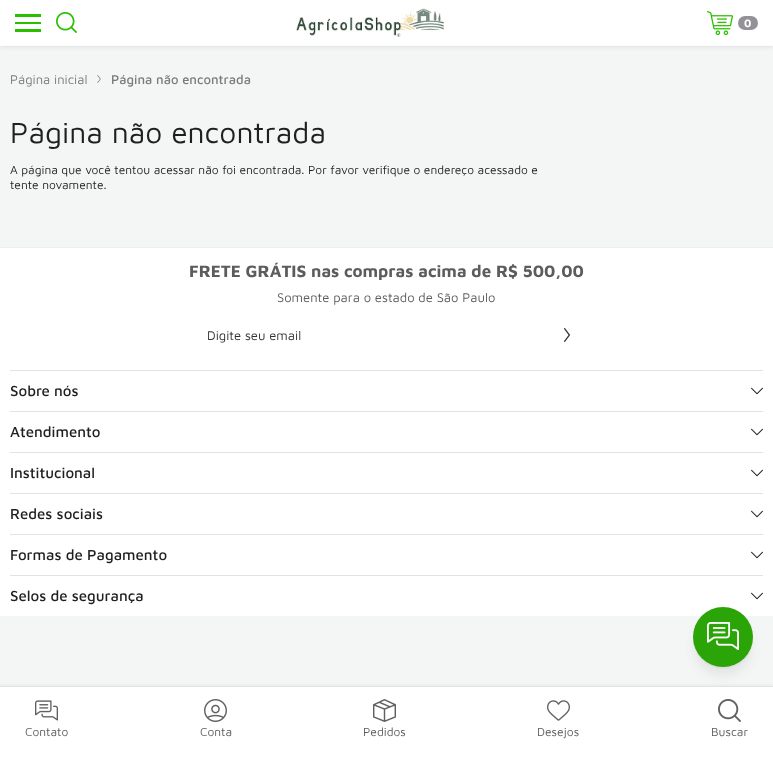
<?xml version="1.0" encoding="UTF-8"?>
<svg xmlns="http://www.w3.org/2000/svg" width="773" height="757">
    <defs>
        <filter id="blur1" x="-50%" y="-200%" width="200%" height="500%"><feGaussianBlur stdDeviation="2"/></filter>
        <filter id="blur2" x="-50%" y="-200%" width="200%" height="500%"><feGaussianBlur stdDeviation="4"/></filter>
        <filter id="blur3" x="-50%" y="-200%" width="200%" height="500%"><feGaussianBlur stdDeviation="0.5"/></filter>
    </defs>
    <rect width="100%" height="100%" fill="#F3F6F4"/>
    <rect x="0" y="1" width="773" height="46" fill="#525252" fill-opacity="0.13" filter="url(#blur1)"/>
    <rect x="0" y="0" width="773" height="45" fill="#FFFFFF"/>
    <rect x="0" y="45" width="773" height="1" fill="#FCFCFC"/>
    <rect x="15" y="29" width="26" height="3" fill="#2ABF00"/>
    <rect x="15" y="22" width="26" height="2" fill="#2ABF00"/>
    <rect x="15" y="14" width="26" height="3" fill="#2ABF00"/>
    <image x="56" y="12" width="21" height="21" href="img_01.png"/>
    <image x="296" y="8" width="148" height="29" href="img_02.png"/>
    <image x="707" y="11" width="26" height="24" href="img_03.png"/>
    <rect x="738" y="16" width="20" height="14" rx="7" fill="#949297"/>
    <text x="744" y="27" font-family="Maven Pro" font-size="11" font-weight="700" fill="#FFFFFF">0</text>
    <text x="10" y="84" font-family="Maven Pro" font-size="13" fill="#7B7B7B">Página inicial</text>
    <image x="97" y="75" width="4" height="8" href="img_04.png"/>
    <text x="111" y="84" font-family="Maven Pro" font-size="13" font-weight="500" fill="#7B7B7B">Página não encontrada</text>
    <text x="10" y="143" font-family="Maven Pro" font-size="30" fill="#201F1F">Página não encontrada</text>
    <text font-family="Maven Pro" font-size="12" fill="#201F1F">
        <tspan x="10" y="174">A página que você tentou acessar não foi encontrada. Por favor verifique o endereço acessado e</tspan>
        <tspan x="10" y="189">tente novamente.</tspan>
    </text>
    <rect x="0" y="247" width="773" height="1" fill="#EFEFEF"/>
    <rect x="0" y="248" width="773" height="368" fill="#FFFFFF"/>
    <text x="189" y="277" font-family="Maven Pro" font-size="17" font-weight="700" fill="#5C5C5C">FRETE GRÁTIS nas compras acima de R$ 500,00</text>
    <text x="277" y="302" font-family="Maven Pro" font-size="13" fill="#5C5C5C">Somente para o estado de São Paulo</text>
    <text x="207" y="340" font-family="Maven Pro" font-size="13" fill="#323232">Digite seu email</text>
    <image x="564" y="328" width="6" height="14" href="img_05.png"/>
    <rect x="10" y="370" width="753" height="1" fill="#E2E2E2"/>
    <text x="10" y="396" font-family="Maven Pro" font-size="15" font-weight="500" fill="#201F1F">Sobre nós</text>
    <image x="751" y="387" width="12" height="8" href="img_06.png"/>
    <rect x="10" y="411" width="753" height="1" fill="#E2E2E2"/>
    <text x="10" y="437" font-family="Maven Pro" font-size="15" font-weight="500" fill="#201F1F">Atendimento</text>
    <image x="751" y="428" width="12" height="8" href="img_06.png"/>
    <rect x="10" y="452" width="753" height="1" fill="#E2E2E2"/>
    <text x="10" y="478" font-family="Maven Pro" font-size="15" font-weight="500" fill="#201F1F">Institucional</text>
    <image x="751" y="469" width="12" height="8" href="img_06.png"/>
    <rect x="10" y="493" width="753" height="1" fill="#E2E2E2"/>
    <text x="10" y="519" font-family="Maven Pro" font-size="15" font-weight="500" fill="#201F1F">Redes sociais</text>
    <image x="751" y="510" width="12" height="8" href="img_06.png"/>
    <rect x="10" y="534" width="753" height="1" fill="#E2E2E2"/>
    <text x="10" y="560" font-family="Maven Pro" font-size="15" font-weight="500" fill="#201F1F">Formas de Pagamento</text>
    <image x="751" y="551" width="12" height="8" href="img_06.png"/>
    <rect x="10" y="575" width="753" height="1" fill="#E2E2E2"/>
    <text x="10" y="601" font-family="Maven Pro" font-size="15" font-weight="500" fill="#201F1F">Selos de segurança</text>
    <image x="751" y="592" width="12" height="8" href="img_06.png"/>
    <rect x="693" y="617" width="60" height="60" rx="30" fill="#676767" fill-opacity="0.1" filter="url(#blur2)"/>
    <rect x="693" y="609" width="60" height="60" rx="30" fill="#000000" fill-opacity="0.04" filter="url(#blur3)"/>
    <circle cx="723" cy="637" r="30" fill="#2AA407"/>
    <image x="707" y="622" width="32" height="28" href="img_07.png"/>
    <rect x="0" y="686" width="773" height="71" fill="#525252" fill-opacity="0.08" filter="url(#blur1)"/>
    <rect x="0" y="687" width="773" height="70" fill="#FFFFFF"/>
    <rect x="0" y="686" width="773" height="1" fill="#E2E2E2"/>
    <image x="35" y="700" width="23" height="21" href="img_08.png"/>
    <text x="25" y="736" font-family="Maven Pro" font-size="12" fill="#5C5C5C">Contato</text>
    <image x="204" y="699" width="23" height="23" href="img_09.png"/>
    <text x="200" y="736" font-family="Maven Pro" font-size="12" fill="#5C5C5C">Conta</text>
    <image x="373" y="699" width="23" height="23" href="img_10.png"/>
    <text x="363" y="736" font-family="Maven Pro" font-size="12" fill="#5C5C5C">Pedidos</text>
    <image x="547" y="700" width="23" height="21" href="img_11.png"/>
    <text x="537" y="736" font-family="Maven Pro" font-size="12" fill="#5C5C5C">Desejos</text>
    <image x="718" y="699" width="23" height="23" href="img_12.png"/>
    <text x="711" y="736" font-family="Maven Pro" font-size="12" fill="#5C5C5C">Buscar</text>
</svg>
